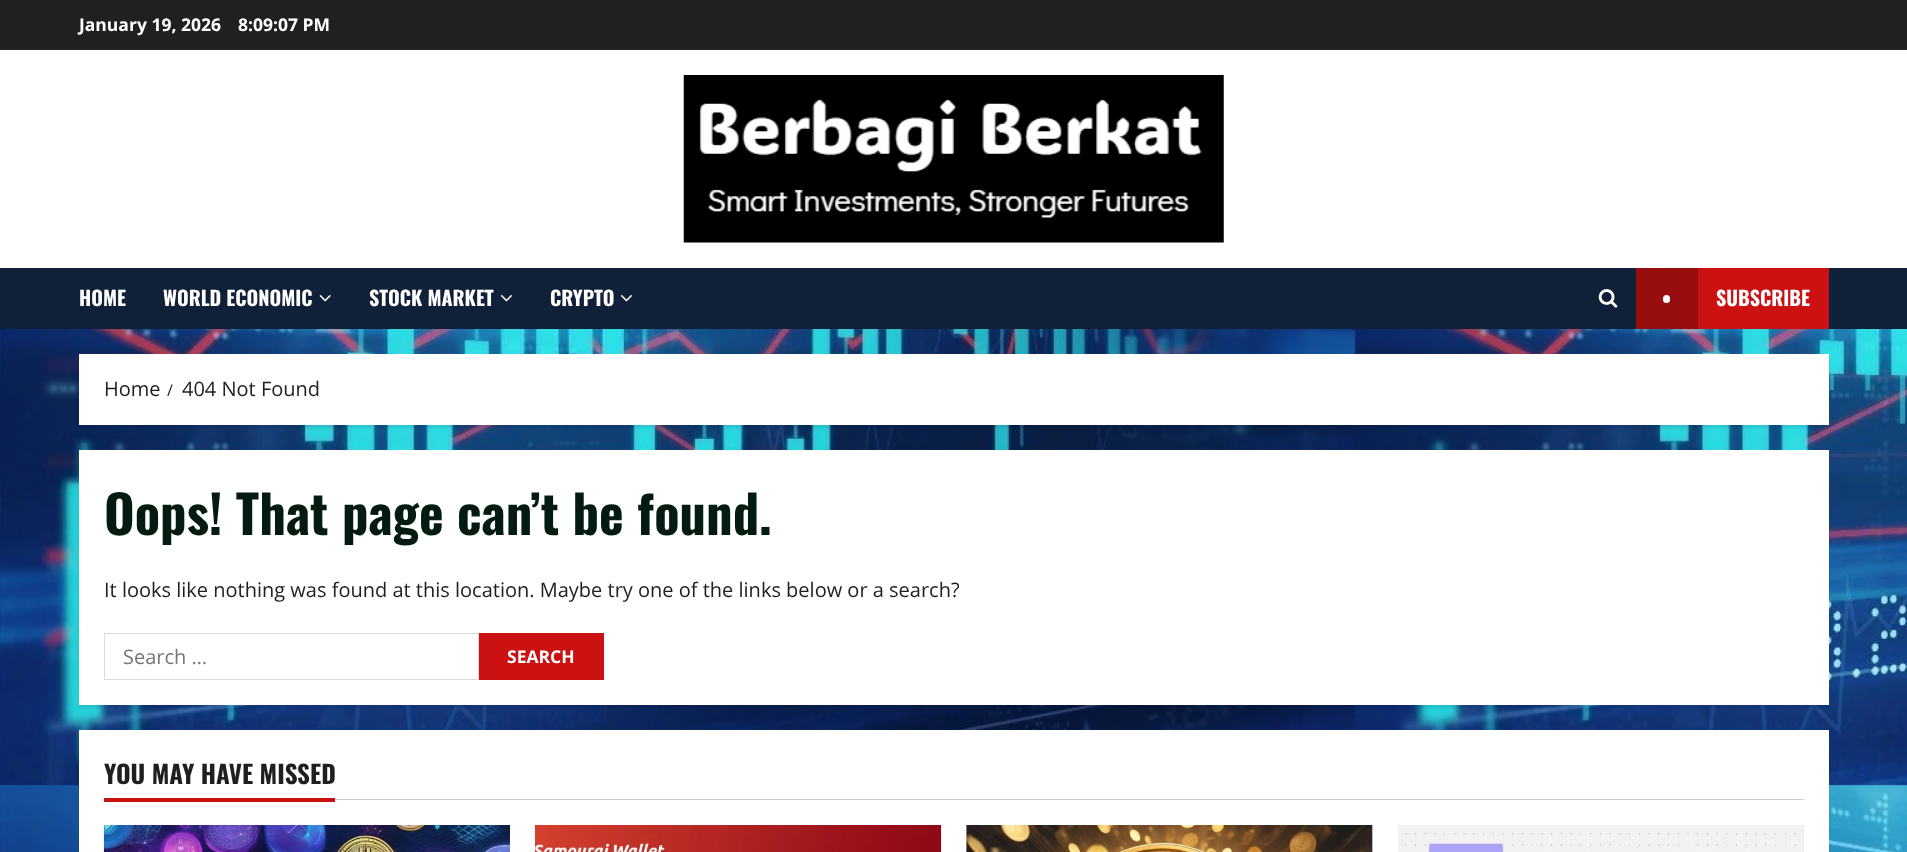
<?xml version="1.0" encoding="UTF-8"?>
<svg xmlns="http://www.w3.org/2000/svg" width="1907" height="852">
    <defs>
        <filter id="blur1" x="-50%" y="-200%" width="200%" height="500%"><feGaussianBlur stdDeviation="1"/></filter>
    </defs>
    <rect width="100%" height="100%" fill="#FFFFFF"/>
    <image x="0" y="329" width="1907" height="523" href="img_01.png"/>
    <rect x="0" y="0" width="1907" height="50" fill="#202020"/>
    <text x="79" y="31" font-family="Open Sans" font-size="17.5" font-weight="700" fill="#FFFFFF">January 19, 2026</text>
    <text x="238" y="31" font-family="Open Sans" font-size="17.5" font-weight="700" fill="#FFFFFF">8:09:07 PM</text>
    <image x="683" y="75" width="541" height="168" href="img_02.png"/>
    <rect x="0" y="268" width="1907" height="61" fill="#102039"/>
    <text x="79" y="306" font-family="Oswald" font-size="20" font-weight="700" fill="#FFFFFF">HOME</text>
    <text x="163" y="306" font-family="Oswald" font-size="20" font-weight="700" fill="#FFFFFF">WORLD ECONOMIC</text>
    <image x="319" y="295" width="12" height="7" href="img_03.png"/>
    <text x="369" y="306" font-family="Oswald" font-size="20" font-weight="700" fill="#FFFFFF">STOCK MARKET</text>
    <image x="500" y="295" width="12" height="7" href="img_04.png"/>
    <text x="550" y="306" font-family="Oswald" font-size="20" font-weight="700" fill="#FFFFFF">CRYPTO</text>
    <image x="620" y="295" width="12" height="7" href="img_04.png"/>
    <image x="1598" y="289" width="20" height="19" href="img_05.png"/>
    <rect x="1698" y="268" width="131" height="61" fill="#CB1111"/>
    <rect x="1636" y="268" width="62" height="61" fill="#980D0D"/>
    <rect x="1663" y="295" width="7" height="8" rx="3.5" fill="#FFFFFF"/>
    <text x="1716" y="306" font-family="Oswald" font-size="20" font-weight="700" fill="#FFFFFF">SUBSCRIBE</text>
    <rect x="79" y="356" width="1750" height="72" fill="#000000" fill-opacity="0.08" filter="url(#blur1)"/>
    <rect x="79" y="354" width="1750" height="71" fill="#FFFFFF"/>
    <text x="104" y="396" font-family="Open Sans" font-size="20" fill="#1F1F1F">Home</text>
    <text x="167" y="396" font-family="Open Sans" font-size="16" fill="#1F1F1F">/</text>
    <text x="182" y="396" font-family="Open Sans" font-size="20" fill="#1F1F1F">404 Not Found</text>
    <rect x="79" y="453" width="1750" height="255" fill="#000000" fill-opacity="0.08" filter="url(#blur1)"/>
    <rect x="79" y="450" width="1750" height="255" fill="#FFFFFF"/>
    <text x="104" y="535" font-family="Oswald" font-size="52.5" font-weight="700" fill="#031B11">Oops! That page can’t be found.</text>
    <text x="104" y="597" font-family="Open Sans" font-size="20" fill="#1F1F1F">It looks like nothing was found at this location. Maybe try one of the links below or a search?</text>
    <rect x="104.5" y="633.5" width="374" height="46" fill="none" stroke="#DCDCDC"/>
    <text x="123" y="664" font-family="Open Sans" font-size="20" fill="#757575">Search …</text>
    <rect x="479" y="633" width="125" height="47" fill="#CB1111"/>
    <text x="507" y="663" font-family="Open Sans" font-size="17.5" font-weight="700" fill="#FFFFFF">SEARCH</text>
    <rect x="79" y="733" width="1750" height="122" fill="#000000" fill-opacity="0.08" filter="url(#blur1)"/>
    <rect x="79" y="730" width="1750" height="122" fill="#FFFFFF"/>
    <rect x="335" y="799" width="1469" height="1" fill="#CCCCCC"/>
    <text x="104" y="784" font-family="Oswald" font-size="25" font-weight="700" fill="#1F1F1F">YOU MAY HAVE MISSED</text>
    <rect x="104" y="798" width="231" height="4" fill="#CB1111"/>
    <image x="103" y="825" width="407" height="27" href="img_06.png"/>
    <image x="535" y="825" width="407" height="27" href="img_07.png"/>
    <rect x="966" y="825" width="407" height="27" fill="#ECECEC"/>
    <image x="966" y="825" width="407" height="27" href="img_08.png"/>
    <rect x="1803" y="825" width="1" height="27" fill="#ECECEC"/>
    <image x="1397" y="825" width="406" height="27" href="img_09.png"/>
</svg>
